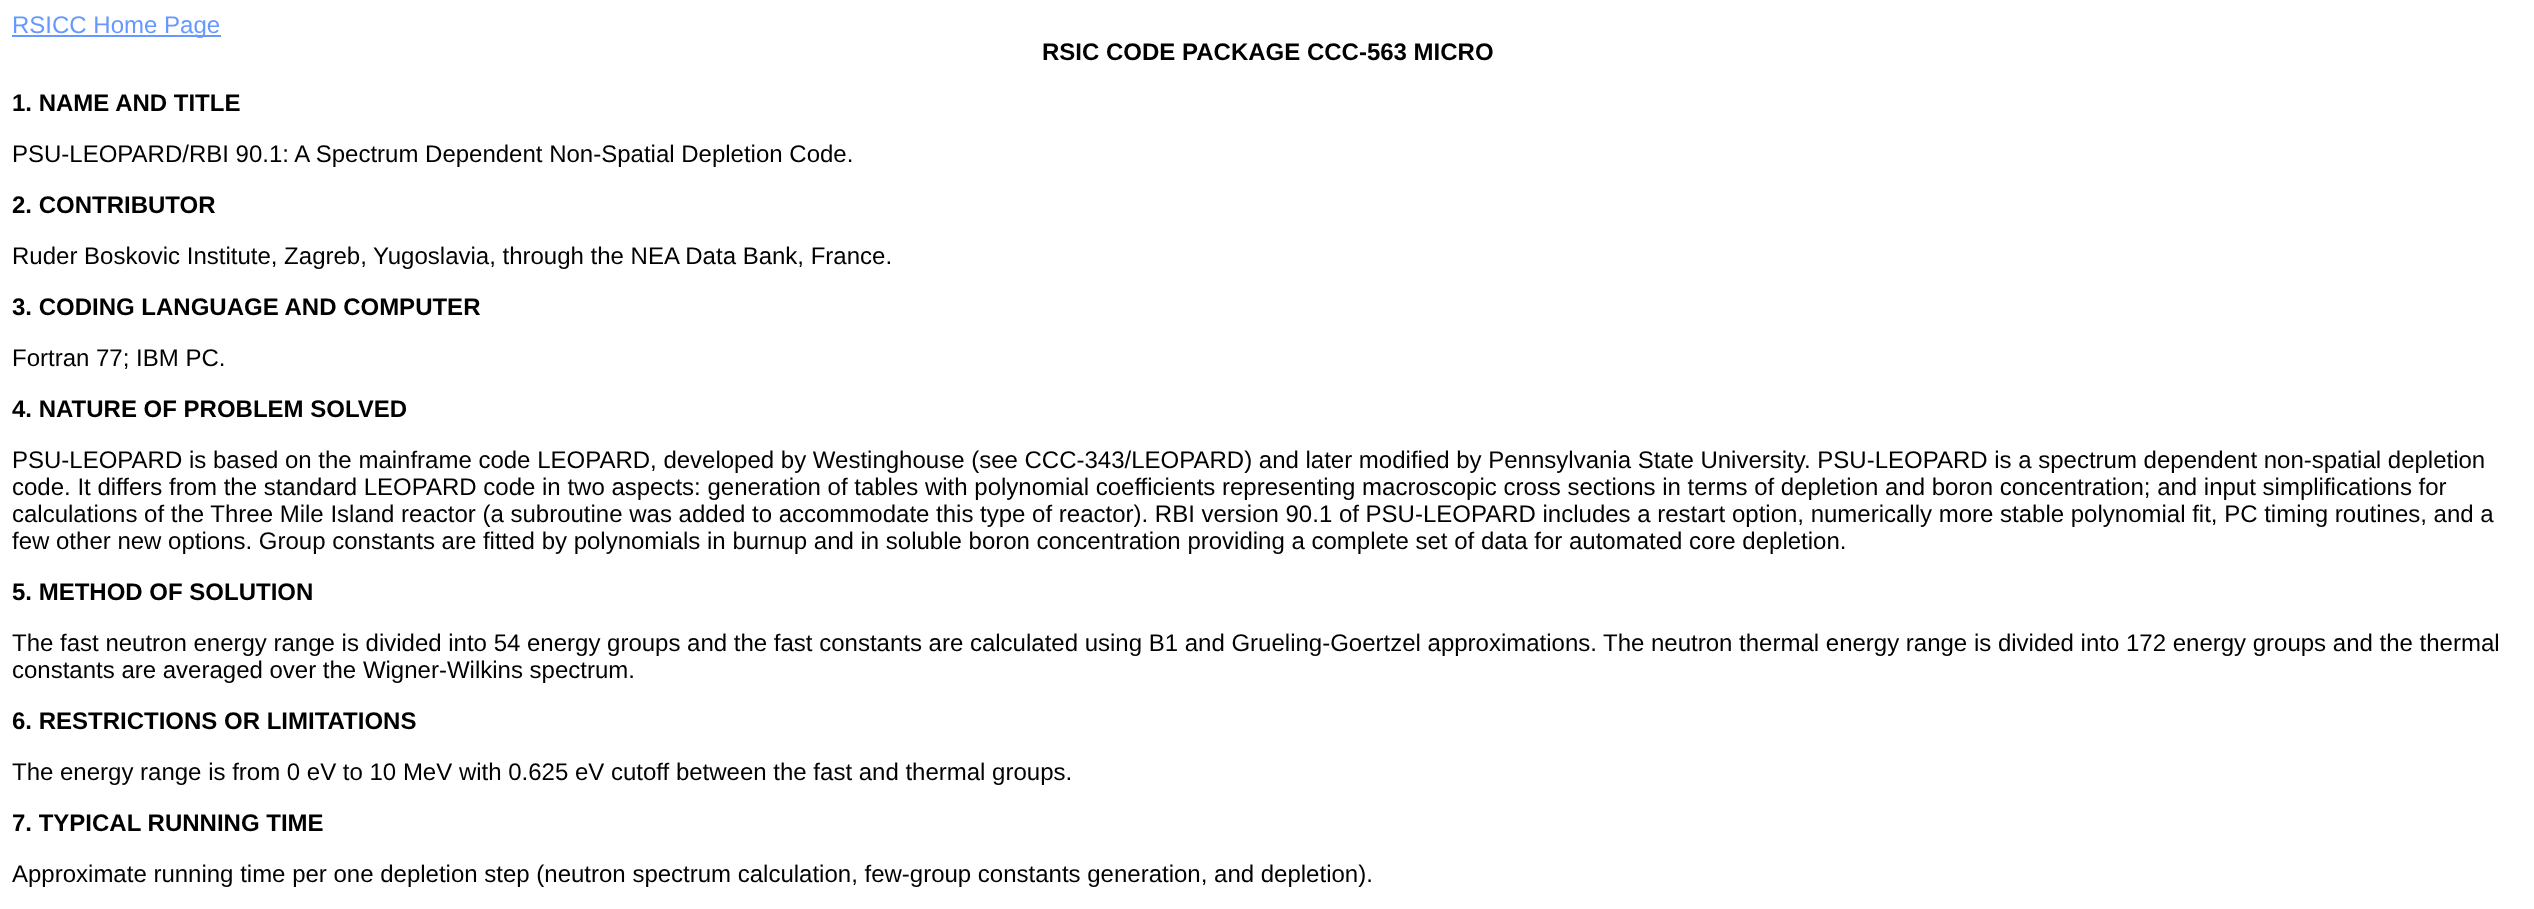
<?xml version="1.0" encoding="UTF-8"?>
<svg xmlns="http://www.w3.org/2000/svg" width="2534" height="909">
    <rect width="100%" height="100%" fill="#FFFFFF"/>
    <rect x="12" y="35" width="209" height="2" fill="#6699FF"/>
    <text x="12" y="33" font-family="Liberation Sans" font-size="24" fill="#6699FF">RSICC Home Page</text>
    <text x="1042" y="60" font-family="Liberation Sans" font-size="24" font-weight="700" fill="#000000">RSIC CODE PACKAGE CCC-563 MICRO</text>
    <text x="12" y="111" font-family="Liberation Sans" font-size="24" font-weight="700" fill="#000000">1. NAME AND TITLE</text>
    <text x="12" y="162" font-family="Liberation Sans" font-size="24" fill="#000000">PSU-LEOPARD/RBI 90.1: A Spectrum Dependent Non-Spatial Depletion Code.</text>
    <text x="12" y="213" font-family="Liberation Sans" font-size="24" font-weight="700" fill="#000000">2. CONTRIBUTOR</text>
    <text x="12" y="264" font-family="Liberation Sans" font-size="24" fill="#000000">Ruder Boskovic Institute, Zagreb, Yugoslavia, through the NEA Data Bank, France.</text>
    <text x="12" y="315" font-family="Liberation Sans" font-size="24" font-weight="700" fill="#000000">3. CODING LANGUAGE AND COMPUTER</text>
    <text x="12" y="366" font-family="Liberation Sans" font-size="24" fill="#000000">Fortran 77; IBM PC.</text>
    <text x="12" y="417" font-family="Liberation Sans" font-size="24" font-weight="700" fill="#000000">4. NATURE OF PROBLEM SOLVED</text>
    <text font-family="Liberation Sans" font-size="24" fill="#000000">
        <tspan x="12" y="468">PSU-LEOPARD is based on the mainframe code LEOPARD, developed by Westinghouse (see CCC-343/LEOPARD) and later modified by Pennsylvania State University. PSU-LEOPARD is a spectrum dependent non-spatial depletion</tspan>
        <tspan x="12" y="495">code. It differs from the standard LEOPARD code in two aspects: generation of tables with polynomial coefficients representing macroscopic cross sections in terms of depletion and boron concentration; and input simplifications for</tspan>
        <tspan x="12" y="522">calculations of the Three Mile Island reactor (a subroutine was added to accommodate this type of reactor). RBI version 90.1 of PSU-LEOPARD includes a restart option, numerically more stable polynomial fit, PC timing routines, and a</tspan>
        <tspan x="12" y="549">few other new options. Group constants are fitted by polynomials in burnup and in soluble boron concentration providing a complete set of data for automated core depletion.</tspan>
    </text>
    <text x="12" y="600" font-family="Liberation Sans" font-size="24" font-weight="700" fill="#000000">5. METHOD OF SOLUTION</text>
    <text x="12" y="651" font-family="Liberation Sans" font-size="24" fill="#000000">The fast neutron energy range is divided into 54 energy groups and the fast constants are calculated using B1 and Grueling-Goertzel approximations.</text>
    <text x="1603" y="651" font-family="Liberation Sans" font-size="24" fill="#000000">The neutron thermal energy range is divided into 172 energy groups and the thermal</text>
    <text x="12" y="678" font-family="Liberation Sans" font-size="24" fill="#000000">constants are averaged over the Wigner-Wilkins spectrum.</text>
    <text x="12" y="729" font-family="Liberation Sans" font-size="24" font-weight="700" fill="#000000">6. RESTRICTIONS OR LIMITATIONS</text>
    <text x="12" y="780" font-family="Liberation Sans" font-size="24" fill="#000000">The energy range is from 0 eV to 10 MeV with 0.625 eV cutoff between the fast and thermal groups.</text>
    <text x="12" y="831" font-family="Liberation Sans" font-size="24" font-weight="700" fill="#000000">7. TYPICAL RUNNING TIME</text>
    <text x="12" y="882" font-family="Liberation Sans" font-size="24" fill="#000000">Approximate running time per one depletion step (neutron spectrum calculation, few-group constants generation, and depletion).</text>
</svg>
